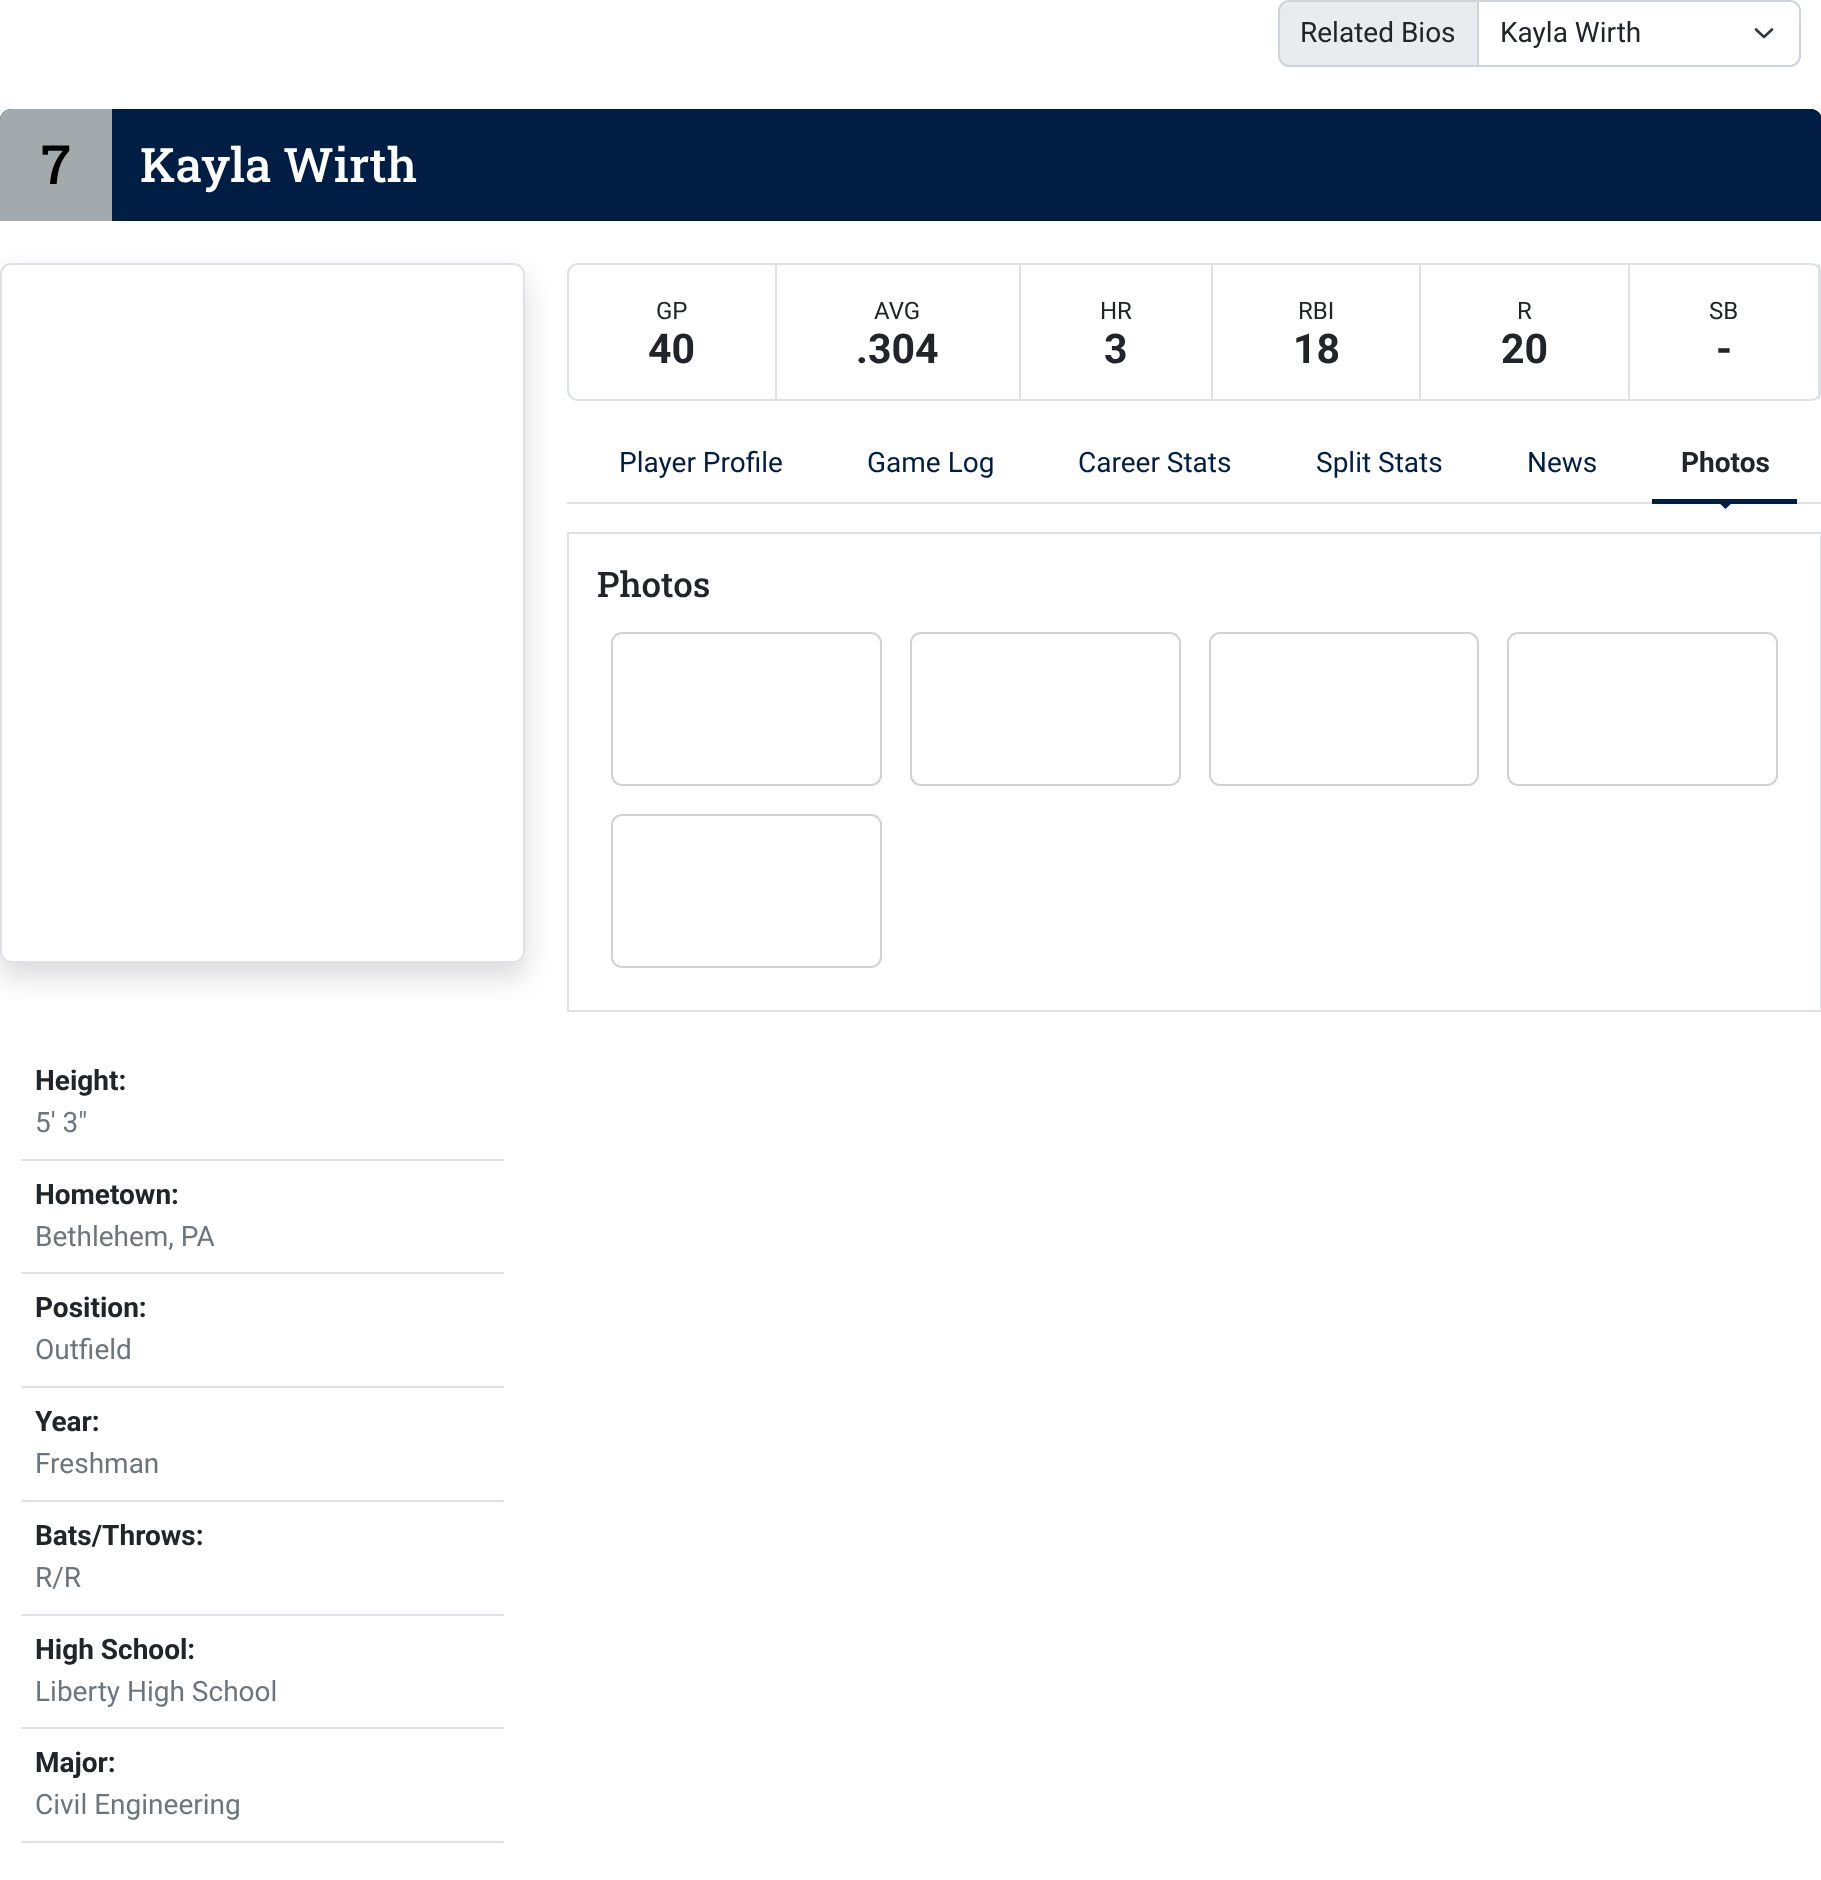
<?xml version="1.0" encoding="UTF-8"?>
<svg xmlns="http://www.w3.org/2000/svg" width="1821" height="1880">
    <defs>
        <clipPath id="clip1"><path d="M 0 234 H 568 V 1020 H 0 Z M 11 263 H 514 C 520 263 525 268 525 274 V 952 C 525 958 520 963 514 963 H 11 C 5 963 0 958 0 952 V 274 C 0 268 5 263 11 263 Z" clip-rule="evenodd"/></clipPath>
        <filter id="blur1" x="-50%" y="-200%" width="200%" height="500%"><feGaussianBlur stdDeviation="14"/></filter>
    </defs>
    <rect width="100%" height="100%" fill="#FFFFFF"/>
    <path d="M 1289 1 H 1478 V 66 H 1289 C 1283.5 66 1279 61.5 1279 56 V 11 C 1279 5.5 1283.5 1 1289 1 Z" fill="#E9ECEF" stroke="#CED4DA" stroke-width="2"/>
    <text x="1300" y="42" font-family="Roboto" font-size="28" fill="#212529">Related Bios</text>
    <path d="M 1477 0 H 1790 C 1796 0 1801 5 1801 11 V 56 C 1801 62 1796 67 1790 67 H 1477 Z" fill="#FFFFFF"/>
    <path d="M 1756 29.5 L 1764 37 L 1772 29.5" fill="none" stroke="#343A40" stroke-width="2.6" stroke-linecap="round" stroke-linejoin="round"/>
    <path d="M 1478 1 H 1790 C 1795.5 1 1800 5.5 1800 11 V 56 C 1800 61.5 1795.5 66 1790 66 H 1478 Z" fill="none" stroke="#CED4DA" stroke-width="2"/>
    <text x="1500" y="42" font-family="Roboto" font-size="28" fill="#212529">Kayla Wirth</text>
    <path d="M 11 109 H 1811 C 1817 109 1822 114 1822 120 V 221 H 0 V 120 C 0 114 5 109 11 109 Z" fill="#001E44"/>
    <path d="M 11 109 H 112 V 221 H 0 V 120 C 0 114 5 109 11 109 Z" fill="#A2AAAD"/>
    <text x="41" y="184" font-family="Roboto Slab" font-size="54" font-weight="500" fill="#000000">7</text>
    <text x="140" y="182" font-family="Roboto Slab" font-size="47.5" font-weight="500" fill="#FFFFFF">Kayla Wirth</text>
    <rect x="568" y="264" width="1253" height="136" rx="10" fill="none" stroke="#DEE2E6" stroke-width="2"/>
    <rect x="775" y="264" width="2" height="135" fill="#DEE2E6"/>
    <text x="656" y="319" font-family="Roboto" font-size="24" fill="#212529">GP</text>
    <text x="648" y="363" font-family="Roboto" font-size="41" font-weight="700" fill="#212529">40</text>
    <rect x="1019" y="264" width="2" height="135" fill="#DEE2E6"/>
    <text x="874" y="319" font-family="Roboto" font-size="24" fill="#212529">AVG</text>
    <text x="856" y="363" font-family="Roboto" font-size="41" font-weight="700" fill="#212529">.304</text>
    <rect x="1211" y="264" width="2" height="135" fill="#DEE2E6"/>
    <text x="1100" y="319" font-family="Roboto" font-size="24" fill="#212529">HR</text>
    <text x="1104" y="363" font-family="Roboto" font-size="41" font-weight="700" fill="#212529">3</text>
    <rect x="1419" y="264" width="2" height="135" fill="#DEE2E6"/>
    <text x="1298" y="319" font-family="Roboto" font-size="24" fill="#212529">RBI</text>
    <text x="1293" y="363" font-family="Roboto" font-size="41" font-weight="700" fill="#212529">18</text>
    <rect x="1628" y="264" width="2" height="135" fill="#DEE2E6"/>
    <text x="1517" y="319" font-family="Roboto" font-size="24" fill="#212529">R</text>
    <text x="1501" y="363" font-family="Roboto" font-size="41" font-weight="700" fill="#212529">20</text>
    <rect x="1818" y="264" width="2" height="135" fill="#DEE2E6"/>
    <text x="1709" y="319" font-family="Roboto" font-size="24" fill="#212529">SB</text>
    <text x="1716" y="363" font-family="Roboto" font-size="41" font-weight="700" fill="#212529">-</text>
    <rect x="567" y="502" width="1254" height="2" fill="#DEE2E6"/>
    <text x="619" y="472" font-family="Roboto" font-size="28" fill="#001E44">Player Profile</text>
    <text x="867" y="472" font-family="Roboto" font-size="28" fill="#001E44">Game Log</text>
    <text x="1078" y="472" font-family="Roboto" font-size="28" fill="#001E44">Career Stats</text>
    <text x="1316" y="472" font-family="Roboto" font-size="28" fill="#001E44">Split Stats</text>
    <text x="1527" y="472" font-family="Roboto" font-size="28" fill="#001E44">News</text>
    <rect x="1652" y="499" width="145" height="5" fill="#001E44"/>
    <text x="1681" y="472" font-family="Roboto" font-size="28" font-weight="700" fill="#212529">Photos</text>
    <path d="M 1715 499 H 1736 L 1725.5 509 Z" fill="#001E44"/>
    <rect x="568" y="533" width="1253" height="478" fill="none" stroke="#DEE2E6" stroke-width="2"/>
    <text x="597" y="597" font-family="Roboto Slab" font-size="35" font-weight="500" fill="#212529">Photos</text>
    <rect x="612" y="633" width="269" height="152" rx="10" fill="none" stroke="#D2D2D2" stroke-width="2"/>
    <rect x="911" y="633" width="269" height="152" rx="10" fill="none" stroke="#D2D2D2" stroke-width="2"/>
    <rect x="1210" y="633" width="268" height="152" rx="10" fill="none" stroke="#D2D2D2" stroke-width="2"/>
    <rect x="1508" y="633" width="269" height="152" rx="10" fill="none" stroke="#D2D2D2" stroke-width="2"/>
    <rect x="612" y="815" width="269" height="152" rx="10" fill="none" stroke="#D2D2D2" stroke-width="2"/>
    <g clip-path="url(#clip1)">
        <rect x="0" y="277" width="525" height="700" rx="11" fill="#000000" fill-opacity="0.15" filter="url(#blur1)"/>
    </g>
    <rect x="1" y="264" width="523" height="698" rx="10" fill="none" stroke="#DEE2E6" stroke-width="2"/>
    <rect x="21" y="1159" width="483" height="2" fill="#DEE2E6"/>
    <text x="35" y="1090" font-family="Roboto" font-size="28" font-weight="700" fill="#212529">Height:</text>
    <text x="35" y="1132" font-family="Roboto" font-size="28" fill="#6C757D">5' 3"</text>
    <rect x="21" y="1272" width="483" height="2" fill="#DEE2E6"/>
    <text x="35" y="1204" font-family="Roboto" font-size="28" font-weight="700" fill="#212529">Hometown:</text>
    <text x="35" y="1246" font-family="Roboto" font-size="28" fill="#6C757D">Bethlehem, PA</text>
    <rect x="21" y="1386" width="483" height="2" fill="#DEE2E6"/>
    <text x="35" y="1317" font-family="Roboto" font-size="28" font-weight="700" fill="#212529">Position:</text>
    <text x="35" y="1359" font-family="Roboto" font-size="28" fill="#6C757D">Outfield</text>
    <rect x="21" y="1500" width="483" height="2" fill="#DEE2E6"/>
    <text x="35" y="1431" font-family="Roboto" font-size="28" font-weight="700" fill="#212529">Year:</text>
    <text x="35" y="1473" font-family="Roboto" font-size="28" fill="#6C757D">Freshman</text>
    <rect x="21" y="1614" width="483" height="2" fill="#DEE2E6"/>
    <text x="35" y="1545" font-family="Roboto" font-size="28" font-weight="700" fill="#212529">Bats/Throws:</text>
    <text x="35" y="1587" font-family="Roboto" font-size="28" fill="#6C757D">R/R</text>
    <rect x="21" y="1727" width="483" height="2" fill="#DEE2E6"/>
    <text x="35" y="1659" font-family="Roboto" font-size="28" font-weight="700" fill="#212529">High School:</text>
    <text x="35" y="1701" font-family="Roboto" font-size="28" fill="#6C757D">Liberty High School</text>
    <rect x="21" y="1841" width="483" height="2" fill="#DEE2E6"/>
    <text x="35" y="1772" font-family="Roboto" font-size="28" font-weight="700" fill="#212529">Major:</text>
    <text x="35" y="1814" font-family="Roboto" font-size="28" fill="#6C757D">Civil Engineering</text>
</svg>
